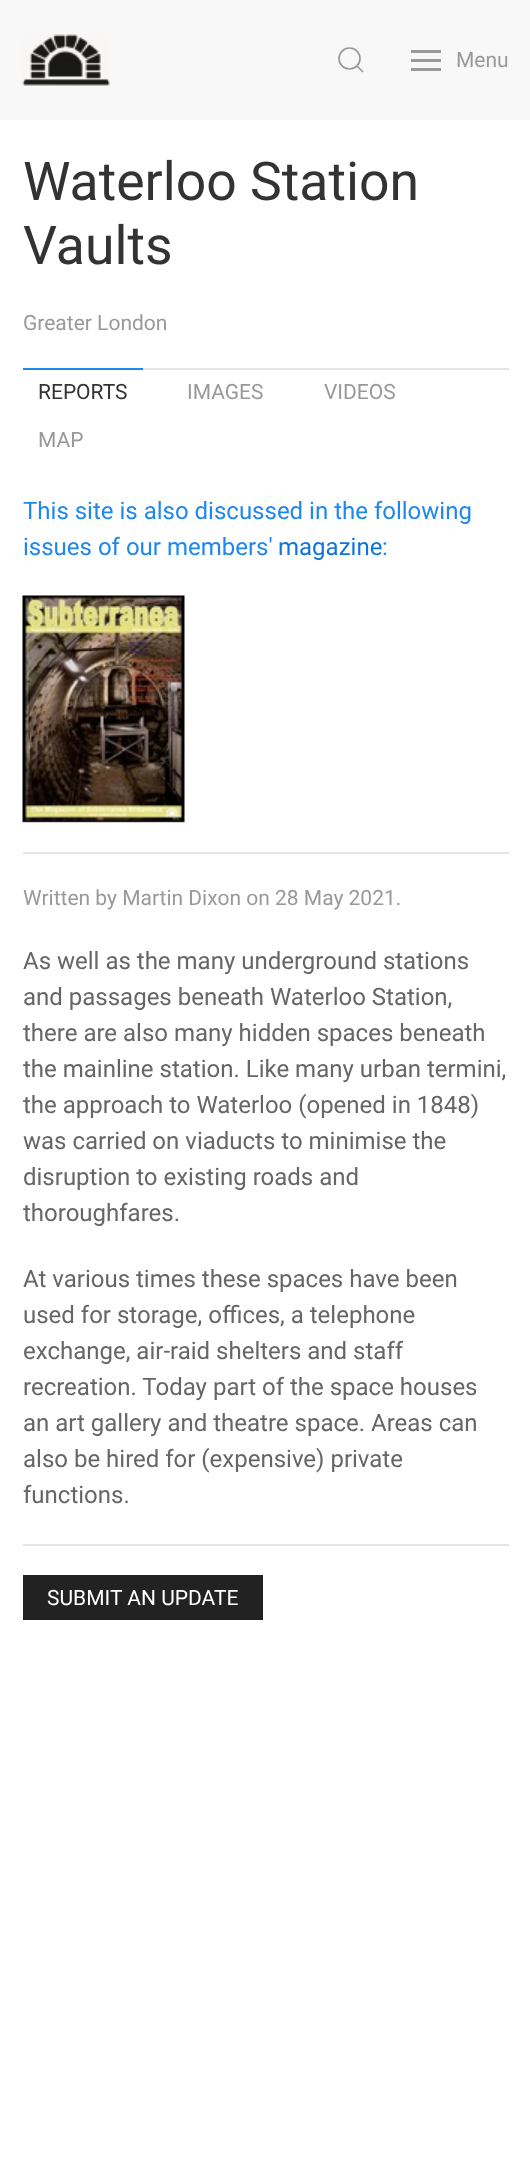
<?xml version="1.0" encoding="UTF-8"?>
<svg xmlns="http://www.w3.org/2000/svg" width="530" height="2164">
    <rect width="100%" height="100%" fill="#FFFFFF"/>
    <rect x="0" y="0" width="530" height="120" fill="#F8F8F8"/>
    <image x="22" y="34" width="88" height="52" href="img_01.png"/>
    <circle cx="349.5" cy="58.5" r="10.5" fill="none" stroke="#999999" stroke-width="1.7"/>
    <path d="M 357 66 L 363 72 Z" fill="none" stroke="#999999" stroke-width="1.7"/>
    <rect x="411" y="50" width="30" height="3" fill="#999999"/>
    <rect x="411" y="59" width="30" height="3" fill="#999999"/>
    <rect x="411" y="68" width="30" height="3" fill="#999999"/>
    <text x="456" y="67" font-family="Roboto" font-size="21" fill="#999999">Menu</text>
    <text font-family="Roboto" font-size="53.5" fill="#333333">
        <tspan x="23" y="200">Waterloo Station</tspan>
        <tspan x="23" y="264">Vaults</tspan>
    </text>
    <text x="23" y="330" font-family="Roboto" font-size="21" fill="#999999">Greater London</text>
    <rect x="143" y="368" width="366" height="2" fill="#E5E5E5"/>
    <rect x="23" y="368" width="120" height="2" fill="#1E87F0"/>
    <text x="38" y="399" font-family="Roboto" font-size="21" fill="#333333">REPORTS</text>
    <text x="187" y="399" font-family="Roboto" font-size="21" fill="#999999">IMAGES</text>
    <text x="324" y="399" font-family="Roboto" font-size="21" fill="#999999">VIDEOS</text>
    <text x="38" y="447" font-family="Roboto" font-size="21" fill="#999999">MAP</text>
    <text font-family="Roboto" font-size="24" fill="#1E87F0">
        <tspan x="23" y="519">This site is also discussed in the following</tspan>
        <tspan x="23" y="555">issues of our members'</tspan>
    </text>
    <text x="278" y="555" font-family="Roboto" font-size="24" fill="#0E75DD">magazine</text>
    <text x="382" y="555" font-family="Roboto" font-size="24" fill="#1E87F0">:</text>
    <image x="22" y="595" width="163" height="228" href="img_02.png"/>
    <rect x="23" y="852" width="486" height="2" fill="#E5E5E5"/>
    <text x="23" y="905" font-family="Roboto" font-size="21" fill="#999999">Written by Martin Dixon on 28 May 2021.</text>
    <text font-family="Roboto" font-size="24" fill="#666666">
        <tspan x="23" y="969">As well as the many underground stations</tspan>
        <tspan x="23" y="1005">and passages beneath Waterloo Station,</tspan>
        <tspan x="23" y="1041">there are also many hidden spaces beneath</tspan>
        <tspan x="23" y="1077">the mainline station. Like many urban termini,</tspan>
        <tspan x="23" y="1113">the approach to Waterloo (opened in 1848)</tspan>
        <tspan x="23" y="1149">was carried on viaducts to minimise the</tspan>
        <tspan x="23" y="1185">disruption to existing roads and</tspan>
        <tspan x="23" y="1221">thoroughfares.</tspan>
    </text>
    <text font-family="Roboto" font-size="24" fill="#666666">
        <tspan x="23" y="1287">At various times these spaces have been</tspan>
        <tspan x="23" y="1323">used for storage, offices, a telephone</tspan>
        <tspan x="23" y="1359">exchange, air-raid shelters and staff</tspan>
        <tspan x="23" y="1395">recreation. Today part of the space houses</tspan>
        <tspan x="23" y="1431">an art gallery and theatre space. Areas can</tspan>
        <tspan x="23" y="1467">also be hired for (expensive) private</tspan>
        <tspan x="23" y="1503">functions.</tspan>
    </text>
    <rect x="23" y="1544" width="486" height="2" fill="#E5E5E5"/>
    <rect x="23" y="1575" width="240" height="45" fill="#222222"/>
    <text x="47" y="1605" font-family="Roboto" font-size="21" fill="#FFFFFF">SUBMIT AN UPDATE</text>
</svg>
